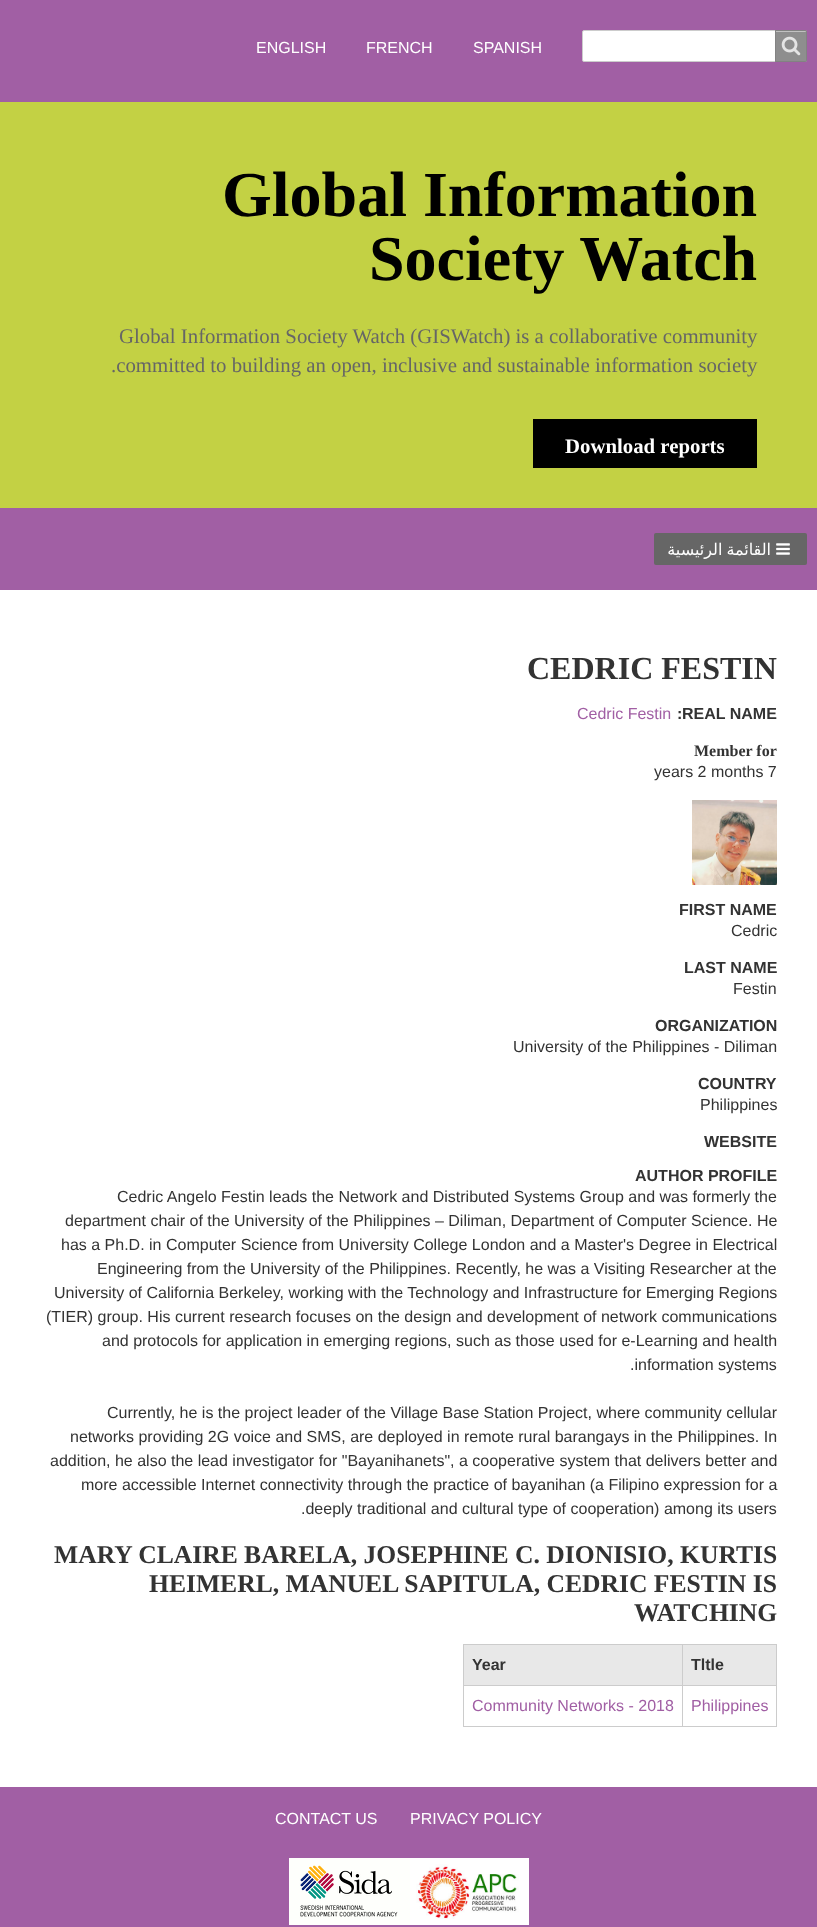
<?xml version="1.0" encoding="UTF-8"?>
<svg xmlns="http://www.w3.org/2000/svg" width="817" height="1927">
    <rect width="100%" height="100%" fill="#A15FA4"/>
    <text x="256" y="53" font-family="Liberation Sans" font-size="16" fill="#FFFFFF">ENGLISH</text>
    <text x="366" y="53" font-family="Liberation Sans" font-size="16" fill="#FFFFFF">FRENCH</text>
    <text x="473" y="53" font-family="Liberation Sans" font-size="16" fill="#FFFFFF">SPANISH</text>
    <rect x="582.5" y="30.5" width="224" height="31" rx="1.5" fill="#FFFFFF" stroke="#CCCCCC"/>
    <path d="M 775 30 H 805 C 806 30 807 31 807 32 V 60 C 807 61 806 62 805 62 H 775 Z" fill="#828282" fill-opacity="0.9"/>
    <image x="781" y="36" width="20" height="20" href="img_01.png"/>
    <path d="M 776 32 H 806 V 33 V 32 C 806 31.5 805.5 31 805 31 H 776 Z" fill="#C1C1C1"/>
    <path d="M 775.5 30.5 H 805 C 806 30.5 806.5 31 806.5 32 V 60 C 806.5 61 806 61.5 805 61.5 H 775.5 Z" fill="none" stroke="#828282" stroke-opacity="0.9"/>
    <rect x="0" y="102" width="817" height="406" fill="#C3D144"/>
    <text x="222" y="216" font-family="Liberation Serif" font-size="64" font-weight="700" fill="#000000">Global Information</text>
    <text x="369" y="280" font-family="Liberation Serif" font-size="64" font-weight="700" fill="#000000">Society Watch</text>
    <text x="119" y="343" font-family="Liberation Serif" font-size="20.8" fill="#666666">Global Information Society Watch (GISWatch) is a collaborative community</text>
    <text x="111" y="372" font-family="Liberation Serif" font-size="20.8" fill="#666666">.committed to building an open, inclusive and sustainable information society</text>
    <rect x="533" y="419" width="224" height="49" fill="#000000"/>
    <text x="565" y="453" font-family="Liberation Serif" font-size="20.8" font-weight="700" fill="#FFFFFF">Download reports</text>
    <rect x="654" y="533" width="153" height="32" rx="2" fill="#666666"/>
    <text x="771" y="555" word-spacing="-1" font-family="DejaVu Sans" font-size="16" direction="rtl" fill="#FFFFFF">القائمة الرئيسية</text>
    <image x="776" y="543" width="14" height="12" href="img_02.png"/>
    <rect x="0" y="590" width="817" height="1197" fill="#FFFFFF"/>
    <text x="527" y="679" font-family="Liberation Serif" font-size="32" font-weight="700" fill="#333333">CEDRIC FESTIN</text>
    <text x="577" y="719" font-family="Liberation Sans" font-size="16" fill="#A15FA4">Cedric Festin</text>
    <text x="677" y="719" font-family="Liberation Sans" font-size="16" font-weight="700" fill="#333333">:</text>
    <text x="682" y="719" font-family="Liberation Sans" font-size="16" font-weight="700" fill="#333333">REAL NAME</text>
    <text x="694" y="756" font-family="Liberation Serif" font-size="16" font-weight="700" fill="#333333">Member for</text>
    <text x="654" y="777" font-family="Liberation Sans" font-size="16" fill="#333333">years 2 months 7</text>
    <image x="692" y="800" width="85" height="85" href="img_03.png"/>
    <text x="679" y="915" font-family="Liberation Sans" font-size="16" font-weight="700" fill="#333333">FIRST NAME</text>
    <text x="731" y="936" font-family="Liberation Sans" font-size="16" fill="#333333">Cedric</text>
    <text x="684" y="973" font-family="Liberation Sans" font-size="16" font-weight="700" fill="#333333">LAST NAME</text>
    <text x="733" y="994" font-family="Liberation Sans" font-size="16" fill="#333333">Festin</text>
    <text x="655" y="1031" font-family="Liberation Sans" font-size="16" font-weight="700" fill="#333333">ORGANIZATION</text>
    <text x="513" y="1052" font-family="Liberation Sans" font-size="16" fill="#333333">University of the Philippines - Diliman</text>
    <text x="698" y="1089" font-family="Liberation Sans" font-size="16" font-weight="700" fill="#333333">COUNTRY</text>
    <text x="700" y="1110" font-family="Liberation Sans" font-size="16" fill="#333333">Philippines</text>
    <text x="704" y="1147" font-family="Liberation Sans" font-size="16" font-weight="700" fill="#333333">WEBSITE</text>
    <text x="635" y="1181" font-family="Liberation Sans" font-size="16" font-weight="700" fill="#333333">AUTHOR PROFILE</text>
    <text x="117" y="1202" font-family="Liberation Sans" font-size="16" fill="#333333">Cedric Angelo Festin leads the Network and Distributed Systems Group and was formerly the</text>
    <text x="65" y="1226" font-family="Liberation Sans" font-size="16" fill="#333333">department chair of the University of the Philippines – Diliman, Department of Computer Science. He</text>
    <text x="61" y="1250" font-family="Liberation Sans" font-size="16" fill="#333333">has a Ph.D. in Computer Science from University College London and a Master's Degree in Electrical</text>
    <text x="97" y="1274" font-family="Liberation Sans" font-size="16" fill="#333333">Engineering from the University of the Philippines. Recently, he was a Visiting Researcher at the</text>
    <text x="54" y="1298" font-family="Liberation Sans" font-size="16" fill="#333333">University of California Berkeley, working with the Technology and Infrastructure for Emerging Regions</text>
    <text x="46" y="1322" font-family="Liberation Sans" font-size="16" fill="#333333">(TIER) group. His current research focuses on the design and development of network communications</text>
    <text x="102" y="1346" font-family="Liberation Sans" font-size="16" fill="#333333">and protocols for application in emerging regions, such as those used for e-Learning and health</text>
    <text x="630" y="1370" font-family="Liberation Sans" font-size="16" fill="#333333">.information systems</text>
    <text x="107" y="1418" font-family="Liberation Sans" font-size="16" fill="#333333">Currently, he is the project leader of the Village Base Station Project, where community cellular</text>
    <text x="70" y="1442" font-family="Liberation Sans" font-size="16" fill="#333333">networks providing 2G voice and SMS, are deployed in remote rural barangays in the Philippines. In</text>
    <text x="50" y="1466" font-family="Liberation Sans" font-size="16" fill="#333333">addition, he also the lead investigator for "Bayanihanets", a cooperative system that delivers better and</text>
    <text x="81" y="1490" font-family="Liberation Sans" font-size="16" fill="#333333">more accessible Internet connectivity through the practice of bayanihan (a Filipino expression for a</text>
    <text x="301" y="1514" font-family="Liberation Sans" font-size="16" fill="#333333">.deeply traditional and cultural type of cooperation) among its users</text>
    <text x="54" y="1563" font-family="Liberation Serif" font-size="25.6" font-weight="700" fill="#333333">MARY CLAIRE BARELA, JOSEPHINE C. DIONISIO, KURTIS</text>
    <text x="149" y="1592" font-family="Liberation Serif" font-size="25.6" font-weight="700" fill="#333333">HEIMERL, MANUEL SAPITULA, CEDRIC FESTIN IS</text>
    <text x="634" y="1621" font-family="Liberation Serif" font-size="25.6" font-weight="700" fill="#333333">WATCHING</text>
    <rect x="464" y="1645" width="312" height="40" fill="#E8E8E8"/>
    <rect x="463" y="1644" width="314" height="1" fill="#CCCCCC"/>
    <rect x="463" y="1685" width="314" height="1" fill="#CCCCCC"/>
    <rect x="776" y="1685" width="1" height="42" fill="#CCCCCC"/>
    <rect x="776" y="1644" width="1" height="42" fill="#CCCCCC"/>
    <rect x="463" y="1726" width="314" height="1" fill="#CCCCCC"/>
    <rect x="463" y="1685" width="1" height="42" fill="#CCCCCC"/>
    <rect x="463" y="1644" width="1" height="42" fill="#CCCCCC"/>
    <text x="472" y="1670" font-family="Liberation Sans" font-size="16" font-weight="700" fill="#333333">Year</text>
    <text x="691" y="1670" font-family="Liberation Sans" font-size="16" font-weight="700" fill="#333333">Tltle</text>
    <rect x="682" y="1644" width="1" height="83" fill="#CCCCCC"/>
    <text x="472" y="1711" font-family="Liberation Sans" font-size="16" fill="#A15FA4">Community Networks - 2018</text>
    <text x="691" y="1711" font-family="Liberation Sans" font-size="16" fill="#A15FA4">Philippines</text>
    <text x="275" y="1824" font-family="Liberation Sans" font-size="16" fill="#FFFFFF">CONTACT US</text>
    <text x="410" y="1824" font-family="Liberation Sans" font-size="16" fill="#FFFFFF">PRIVACY POLICY</text>
    <image x="289" y="1858" width="121" height="67" href="img_04.png"/>
    <image x="410" y="1858" width="119" height="67" href="img_05.png"/>
</svg>
